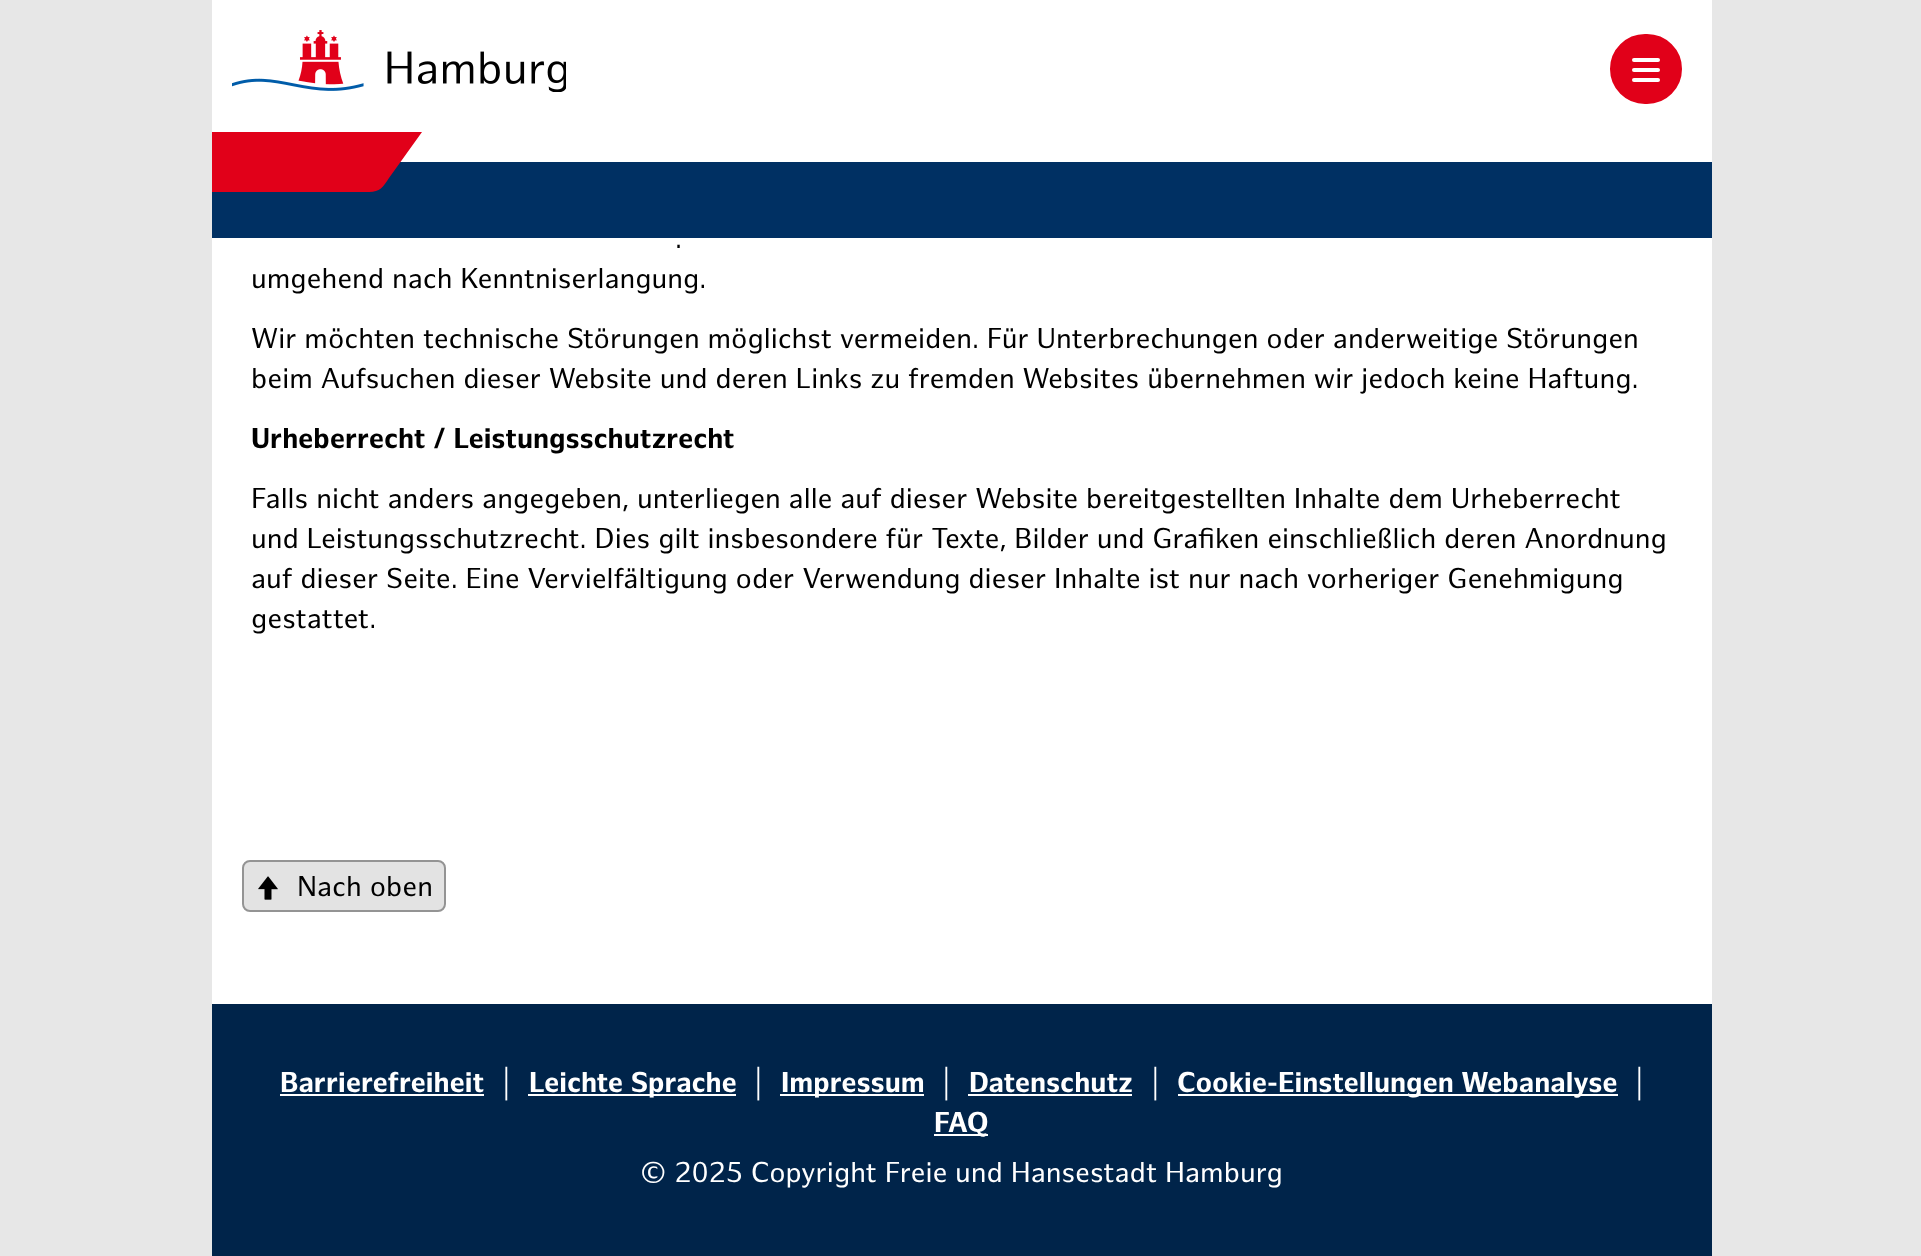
<?xml version="1.0" encoding="UTF-8"?>
<svg xmlns="http://www.w3.org/2000/svg" width="1921" height="1256">
    <rect width="100%" height="100%" fill="#E7E7E7"/>
    <rect x="212" y="0" width="1500" height="162" fill="#FFFFFF"/>
    <image x="232" y="30" width="334" height="62" href="img_01.png"/>
    <rect x="1611" y="35" width="70" height="68" rx="34" fill="#E10019" stroke="#E10019" stroke-width="2"/>
    <rect x="1632" y="58" width="28" height="4" rx="2" fill="#FFFFFF"/>
    <rect x="1632" y="68" width="28" height="4" rx="2" fill="#FFFFFF"/>
    <rect x="1632" y="78" width="28" height="4" rx="2" fill="#FFFFFF"/>
    <rect x="212" y="162" width="1500" height="76" fill="#003063"/>
    <path d="M 422 132 H 212 V 192 H 369 C 380 192 383 187 389 178 Z" fill="#E10019"/>
    <rect x="212" y="238" width="1500" height="766" fill="#FFFFFF"/>
    <text x="675" y="248" font-family="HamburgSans" font-size="28" fill="#000000">.</text>
    <text x="251" y="288" font-family="HamburgSans" font-size="28" fill="#000000">umgehend nach Kenntniserlangung.</text>
    <text font-family="HamburgSans" font-size="28" fill="#000000">
        <tspan x="251" y="348">Wir möchten technische Störungen möglichst vermeiden. Für Unterbrechungen oder anderweitige Störungen</tspan>
        <tspan x="251" y="388">beim Aufsuchen dieser Website und deren Links zu fremden Websites übernehmen wir jedoch keine Haftung.</tspan>
    </text>
    <text x="251" y="448" font-family="HamburgSans" font-size="28" font-weight="700" fill="#000000">Urheberrecht / Leistungsschutzrecht</text>
    <text font-family="HamburgSans" font-size="28" fill="#000000">
        <tspan x="251" y="508">Falls nicht anders angegeben, unterliegen alle auf dieser Website bereitgestellten Inhalte dem Urheberrecht</tspan>
        <tspan x="251" y="548">und Leistungsschutzrecht. Dies gilt insbesondere für Texte, Bilder und Grafiken einschließlich deren Anordnung</tspan>
        <tspan x="251" y="588">auf dieser Seite. Eine Vervielfältigung oder Verwendung dieser Inhalte ist nur nach vorheriger Genehmigung</tspan>
        <tspan x="251" y="628">gestattet.</tspan>
    </text>
    <rect x="243" y="861" width="202" height="50" rx="7" fill="#E3E3E3" stroke="#949494" stroke-width="2"/>
    <image x="258" y="876" width="20" height="24" href="img_02.png"/>
    <text x="297" y="896" font-family="HamburgSans" font-size="28" fill="#000000">Nach oben</text>
    <rect x="212" y="1004" width="1500" height="252" fill="#00244A"/>
    <text x="280" y="1092" font-family="HamburgSans" font-size="28" font-weight="700" fill="#FFFFFF">Barrierefreiheit</text>
    <rect x="280" y="1094" width="204" height="2" fill="#FFFFFF"/>
    <text x="502" y="1092" font-family="HamburgSans" font-size="28" fill="#FFFFFF">|</text>
    <rect x="528" y="1094" width="208" height="2" fill="#FFFFFF"/>
    <text x="529" y="1092" font-family="HamburgSans" font-size="28" font-weight="700" fill="#FFFFFF">Leichte Sprache</text>
    <text x="754" y="1092" font-family="HamburgSans" font-size="28" fill="#FFFFFF">|</text>
    <rect x="780" y="1094" width="144" height="2" fill="#FFFFFF"/>
    <text x="781" y="1092" font-family="HamburgSans" font-size="28" font-weight="700" fill="#FFFFFF">Impressum</text>
    <text x="942" y="1092" font-family="HamburgSans" font-size="28" fill="#FFFFFF">|</text>
    <text x="969" y="1092" font-family="HamburgSans" font-size="28" font-weight="700" fill="#FFFFFF">Datenschutz</text>
    <rect x="968" y="1094" width="164" height="2" fill="#FFFFFF"/>
    <text x="1151" y="1092" font-family="HamburgSans" font-size="28" fill="#FFFFFF">|</text>
    <rect x="1178" y="1094" width="440" height="2" fill="#FFFFFF"/>
    <text x="1177" y="1092" font-family="HamburgSans" font-size="28" font-weight="700" fill="#FFFFFF">Cookie-Einstellungen Webanalyse</text>
    <text x="1635" y="1092" font-family="HamburgSans" font-size="28" fill="#FFFFFF">|</text>
    <rect x="934" y="1134" width="54" height="2" fill="#FFFFFF"/>
    <text x="934" y="1132" font-family="HamburgSans" font-size="28" font-weight="700" fill="#FFFFFF">FAQ</text>
    <text x="640" y="1182" font-family="HamburgSans" font-size="28" fill="#FFFFFF">© 2025 Copyright Freie und Hansestadt Hamburg</text>
</svg>
